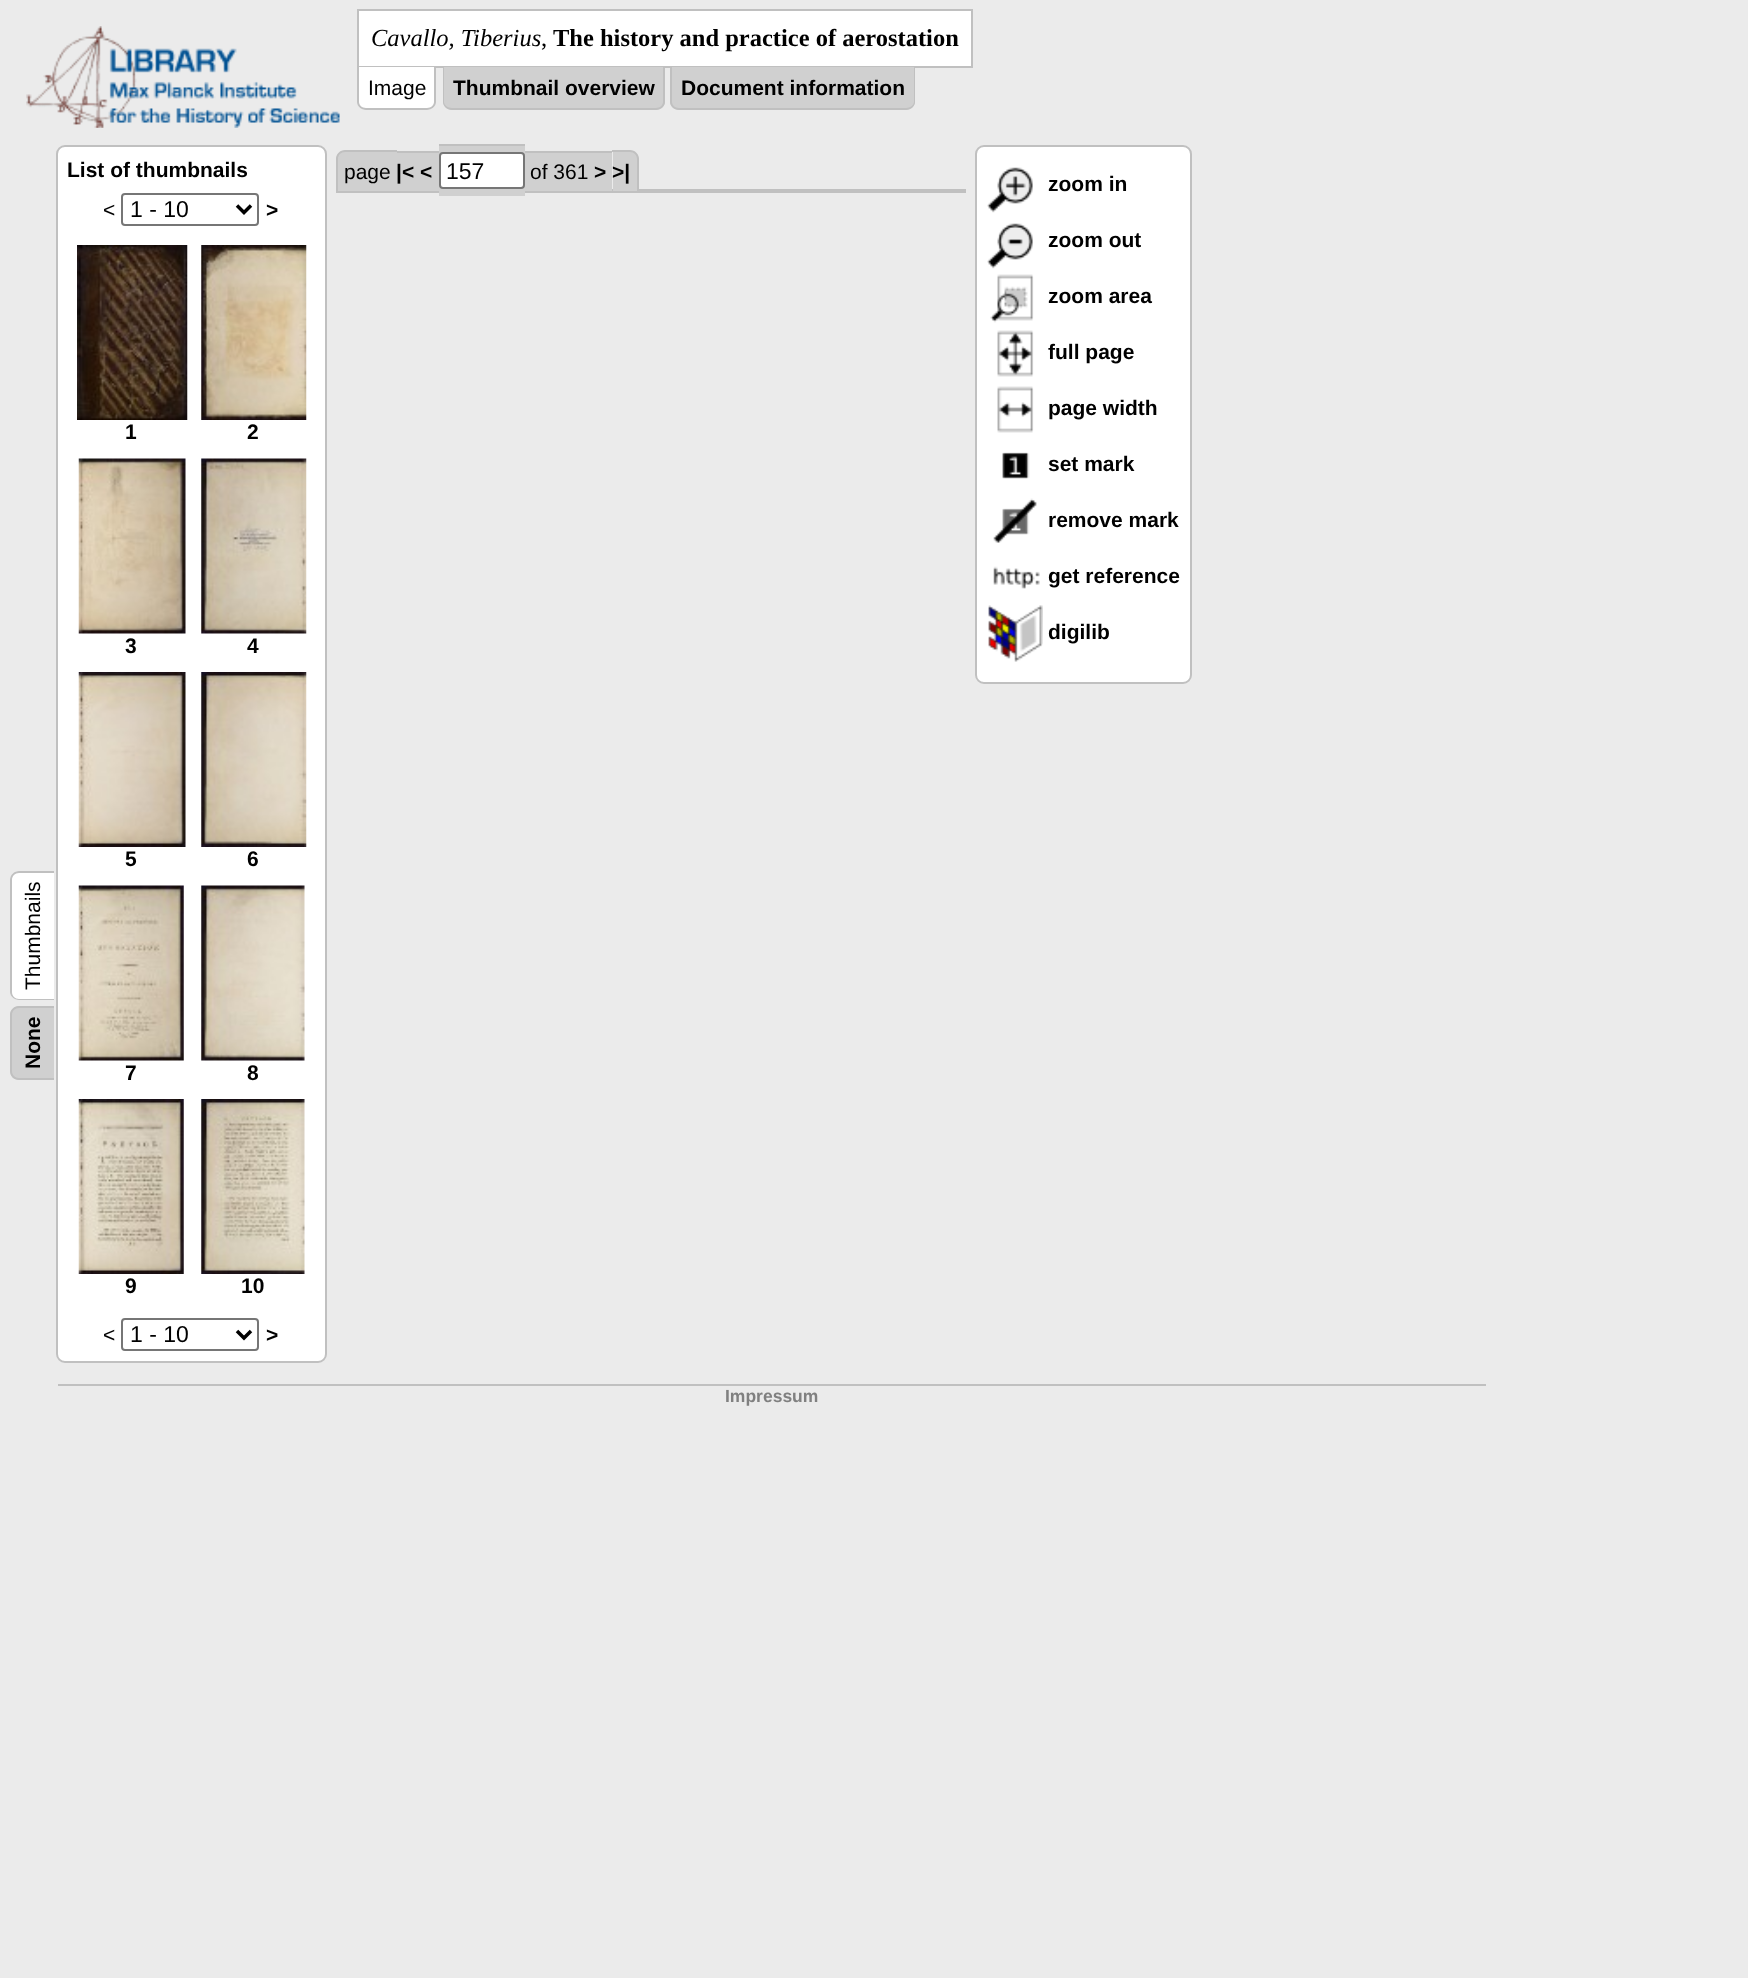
<?xml version="1.0" encoding="UTF-8"?>
<svg xmlns="http://www.w3.org/2000/svg" width="1748" height="1978">
    <rect width="100%" height="100%" fill="#EBEBEB"/>
    <image x="26" y="26" width="314" height="102" href="img_01.png"/>
    <rect x="358" y="10" width="614" height="57" fill="#FFFFFF" stroke="#C0C0C0" stroke-width="2"/>
    <text x="371" y="46" font-family="Liberation Serif" font-size="24.5" font-style="italic" fill="#000000">Cavallo, Tiberius</text>
    <text x="541" y="46" font-family="Liberation Serif" font-size="24.5" fill="#000000">,</text>
    <text x="553" y="46" font-family="Liberation Serif" font-size="24.5" font-weight="700" fill="#000000">The history and practice of aerostation</text>
    <path d="M 357 67 H 436 V 101 C 436 106 432 110 427 110 H 366 C 361 110 357 106 357 101 Z" fill="#FFFFFF"/>
    <path d="M 357 66 H 436 V 102 C 436 106 432 110 427 110 H 366 C 361 110 357 106 357 102 Z M 359 66 H 434 V 102 C 434 105 431 108 427 108 H 366 C 362 108 359 105 359 102 Z" fill="#C0C0C0" fill-rule="evenodd"/>
    <text x="368" y="95" font-family="Liberation Sans" font-size="21" fill="#000000">Image</text>
    <path d="M 443 67 H 665 V 101 C 665 106 661 110 656 110 H 452 C 447 110 443 106 443 101 Z" fill="#D0D0D0"/>
    <path d="M 443 66 H 665 V 102 C 665 106 661 110 656 110 H 452 C 447 110 443 106 443 102 Z M 444 66 H 663 V 102 C 663 105 660 108 656 108 H 452 C 448 108 444 105 444 102 Z" fill="#C0C0C0" fill-rule="evenodd"/>
    <text x="453" y="95" font-family="Liberation Sans" font-size="21" font-weight="700" fill="#000000">Thumbnail overview</text>
    <path d="M 670 67 H 915 V 101 C 915 106 911 110 906 110 H 679 C 674 110 670 106 670 101 Z" fill="#D0D0D0"/>
    <path d="M 670 66 H 915 V 102 C 915 106 911 110 906 110 H 679 C 674 110 670 106 670 102 Z M 672 66 H 914 V 102 C 914 105 910 108 906 108 H 679 C 675 108 672 105 672 102 Z" fill="#C0C0C0" fill-rule="evenodd"/>
    <text x="681" y="95" font-family="Liberation Sans" font-size="21" font-weight="700" fill="#000000">Document information</text>
    <path d="M 10 992 V 880 C 10 875 14 871 19 871 H 54 V 1000 H 19 C 14 1000 10 996 10 992 Z" fill="#FFFFFF"/>
    <path d="M 10 992 V 880 C 10 875 14 871 19 871 H 54 V 1000 H 19 C 14 1000 10 996 10 992 Z M 12 992 V 880 C 12 876 15 873 19 873 H 54 V 999 H 19 C 15 999 12 996 12 992 Z" fill="#C0C0C0" fill-rule="evenodd"/>
    <text x="40" y="990" transform="rotate(-90 40 990)" font-family="Liberation Sans" font-size="21" fill="#000000">Thumbnails</text>
    <path d="M 10 1071 V 1015 C 10 1010 14 1006 19 1006 H 54 V 1080 H 19 C 14 1080 10 1076 10 1071 Z" fill="#D0D0D0"/>
    <path d="M 10 1071 V 1015 C 10 1010 14 1006 19 1006 H 54 V 1080 H 19 C 14 1080 10 1076 10 1071 Z M 12 1071 V 1015 C 12 1011 15 1008 19 1008 H 54 V 1078 H 19 C 15 1078 12 1075 12 1071 Z" fill="#C0C0C0" fill-rule="evenodd"/>
    <text x="40" y="1069" transform="rotate(-90 40 1069)" font-family="Liberation Sans" font-size="21" font-weight="700" fill="#000000">None</text>
    <rect x="57" y="146" width="269" height="1216" rx="8" fill="#FFFFFF" stroke="#C0C0C0" stroke-width="2"/>
    <text x="67" y="177" font-family="Liberation Sans" font-size="21" font-weight="700" fill="#000000">List of thumbnails</text>
    <text x="103" y="217" font-family="Liberation Sans" font-size="21" fill="#000000">&lt;</text>
    <rect x="122" y="194" width="136" height="31" rx="3" fill="none" stroke="#767676" stroke-width="2"/>
    <path d="M 237 205.5 L 244 212.5 L 251 205.5" fill="none" stroke="#000000" stroke-width="3.5"/>
    <text x="130" y="217" font-family="Liberation Sans" font-size="23" fill="#000000">1 - 10</text>
    <text x="266" y="217" font-family="Liberation Sans" font-size="21" font-weight="700" fill="#000000">&gt;</text>
    <image x="77" y="245" width="111" height="175" href="img_02.png"/>
    <text x="125" y="439" font-family="Liberation Sans" font-size="21" font-weight="700" fill="#000000">1</text>
    <image x="201" y="245" width="106" height="175" href="img_03.png"/>
    <text x="247" y="439" font-family="Liberation Sans" font-size="21" font-weight="700" fill="#000000">2</text>
    <image x="78" y="458" width="108" height="176" href="img_04.png"/>
    <text x="125" y="653" font-family="Liberation Sans" font-size="21" font-weight="700" fill="#000000">3</text>
    <image x="201" y="458" width="106" height="176" href="img_05.png"/>
    <text x="247" y="653" font-family="Liberation Sans" font-size="21" font-weight="700" fill="#000000">4</text>
    <image x="78" y="672" width="108" height="175" href="img_06.png"/>
    <text x="125" y="866" font-family="Liberation Sans" font-size="21" font-weight="700" fill="#000000">5</text>
    <image x="201" y="672" width="106" height="175" href="img_07.png"/>
    <text x="247" y="866" font-family="Liberation Sans" font-size="21" font-weight="700" fill="#000000">6</text>
    <image x="78" y="885" width="106" height="176" href="img_08.png"/>
    <text x="125" y="1080" font-family="Liberation Sans" font-size="21" font-weight="700" fill="#000000">7</text>
    <image x="201" y="885" width="104" height="176" href="img_09.png"/>
    <text x="247" y="1080" font-family="Liberation Sans" font-size="21" font-weight="700" fill="#000000">8</text>
    <image x="78" y="1099" width="106" height="175" href="img_10.png"/>
    <text x="125" y="1293" font-family="Liberation Sans" font-size="21" font-weight="700" fill="#000000">9</text>
    <image x="201" y="1099" width="104" height="175" href="img_11.png"/>
    <text x="241" y="1293" font-family="Liberation Sans" font-size="21" font-weight="700" fill="#000000">10</text>
    <text x="103" y="1342" font-family="Liberation Sans" font-size="21" fill="#000000">&lt;</text>
    <rect x="122" y="1319" width="136" height="31" rx="3" fill="none" stroke="#767676" stroke-width="2"/>
    <path d="M 237 1331 L 244 1338 L 251 1331" fill="none" stroke="#000000" stroke-width="3.5"/>
    <text x="130" y="1342" font-family="Liberation Sans" font-size="23" fill="#000000">1 - 10</text>
    <text x="266" y="1342" font-family="Liberation Sans" font-size="21" font-weight="700" fill="#000000">&gt;</text>
    <rect x="336" y="189" width="630" height="4" fill="#C0C0C0"/>
    <path d="M 345 151 H 397 V 191 H 336 V 160 C 336 155 340 151 345 151 Z" fill="#D0D0D0"/>
    <path d="M 345 150 H 397 V 191 H 336 V 159 C 336 154 340 150 345 150 Z M 345 152 H 397 V 191 H 338 V 159 C 338 155 341 152 345 152 Z" fill="#C0C0C0" fill-rule="evenodd"/>
    <rect x="397" y="153" width="18" height="38" fill="#D0D0D0"/>
    <rect x="397" y="151" width="18" height="2" fill="#C0C0C0"/>
    <rect x="415" y="151" width="5" height="40" fill="#D0D0D0"/>
    <rect x="415" y="151" width="17" height="2" fill="#C0C0C0"/>
    <rect x="420" y="153" width="12" height="38" fill="#D0D0D0"/>
    <rect x="432" y="151" width="7" height="40" fill="#D0D0D0"/>
    <rect x="432" y="151" width="7" height="2" fill="#C0C0C0"/>
    <rect x="439" y="146" width="86" height="50" fill="#D0D0D0"/>
    <rect x="439" y="144" width="86" height="2" fill="#C0C0C0"/>
    <rect x="525" y="151" width="5" height="40" fill="#D0D0D0"/>
    <rect x="525" y="151" width="82" height="2" fill="#C0C0C0"/>
    <rect x="530" y="153" width="77" height="38" fill="#D0D0D0"/>
    <rect x="607" y="151" width="5" height="40" fill="#D0D0D0"/>
    <rect x="607" y="151" width="5" height="2" fill="#C0C0C0"/>
    <path d="M 613 151 H 630 C 635 151 639 155 639 160 V 191 H 613 Z" fill="#D0D0D0"/>
    <path d="M 612 150 H 630 C 635 150 639 154 639 159 V 191 H 612 Z M 612 152 H 630 C 634 152 637 155 637 159 V 191 H 612 Z" fill="#C0C0C0" fill-rule="evenodd"/>
    <text x="344" y="179" font-family="Liberation Sans" font-size="21" fill="#000000">page</text>
    <text x="396" y="179" font-family="Liberation Sans" font-size="21" font-weight="700" fill="#000000">|&lt; &lt;</text>
    <rect x="440" y="153" width="84" height="35" rx="3" fill="#FFFFFF" stroke="#767676" stroke-width="2"/>
    <text x="446" y="179" font-family="Liberation Sans" font-size="23" fill="#000000">157</text>
    <text x="530" y="179" font-family="Liberation Sans" font-size="21" fill="#000000">of 361</text>
    <text x="594" y="179" font-family="Liberation Sans" font-size="21" font-weight="700" fill="#000000">&gt; &gt;|</text>
    <rect x="976" y="146" width="215" height="537" rx="8" fill="#FFFFFF" stroke="#C0C0C0" stroke-width="2"/>
    <image x="987" y="167" width="46" height="46" href="img_12.png"/>
    <text x="1048" y="191" font-family="Liberation Sans" font-size="21" font-weight="700" fill="#000000">zoom in</text>
    <image x="987" y="223" width="46" height="46" href="img_13.png"/>
    <text x="1048" y="247" font-family="Liberation Sans" font-size="21" font-weight="700" fill="#000000">zoom out</text>
    <image x="990" y="274" width="44" height="49" href="img_14.png"/>
    <text x="1048" y="303" font-family="Liberation Sans" font-size="21" font-weight="700" fill="#000000">zoom area</text>
    <image x="997" y="330" width="37" height="47" href="img_15.png"/>
    <text x="1048" y="359" font-family="Liberation Sans" font-size="21" font-weight="700" fill="#000000">full page</text>
    <image x="997" y="386" width="37" height="47" href="img_16.png"/>
    <text x="1048" y="415" font-family="Liberation Sans" font-size="21" font-weight="700" fill="#000000">page width</text>
    <image x="1002" y="452" width="28" height="27" href="img_17.png"/>
    <text x="1048" y="471" font-family="Liberation Sans" font-size="21" font-weight="700" fill="#000000">set mark</text>
    <image x="993" y="498" width="44" height="45" href="img_18.png"/>
    <text x="1048" y="527" font-family="Liberation Sans" font-size="21" font-weight="700" fill="#000000">remove mark</text>
    <image x="993" y="566" width="47" height="23" href="img_19.png"/>
    <text x="1048" y="583" font-family="Liberation Sans" font-size="21" font-weight="700" fill="#000000">get reference</text>
    <image x="988" y="605" width="55" height="57" href="img_20.png"/>
    <text x="1048" y="639" font-family="Liberation Sans" font-size="21" font-weight="700" fill="#000000">digilib</text>
    <rect x="58" y="1384" width="1428" height="2" fill="#C0C0C0"/>
    <text x="725" y="1402" font-family="Liberation Sans" font-size="17.5" font-weight="700" fill="#808080">Impressum</text>
</svg>
